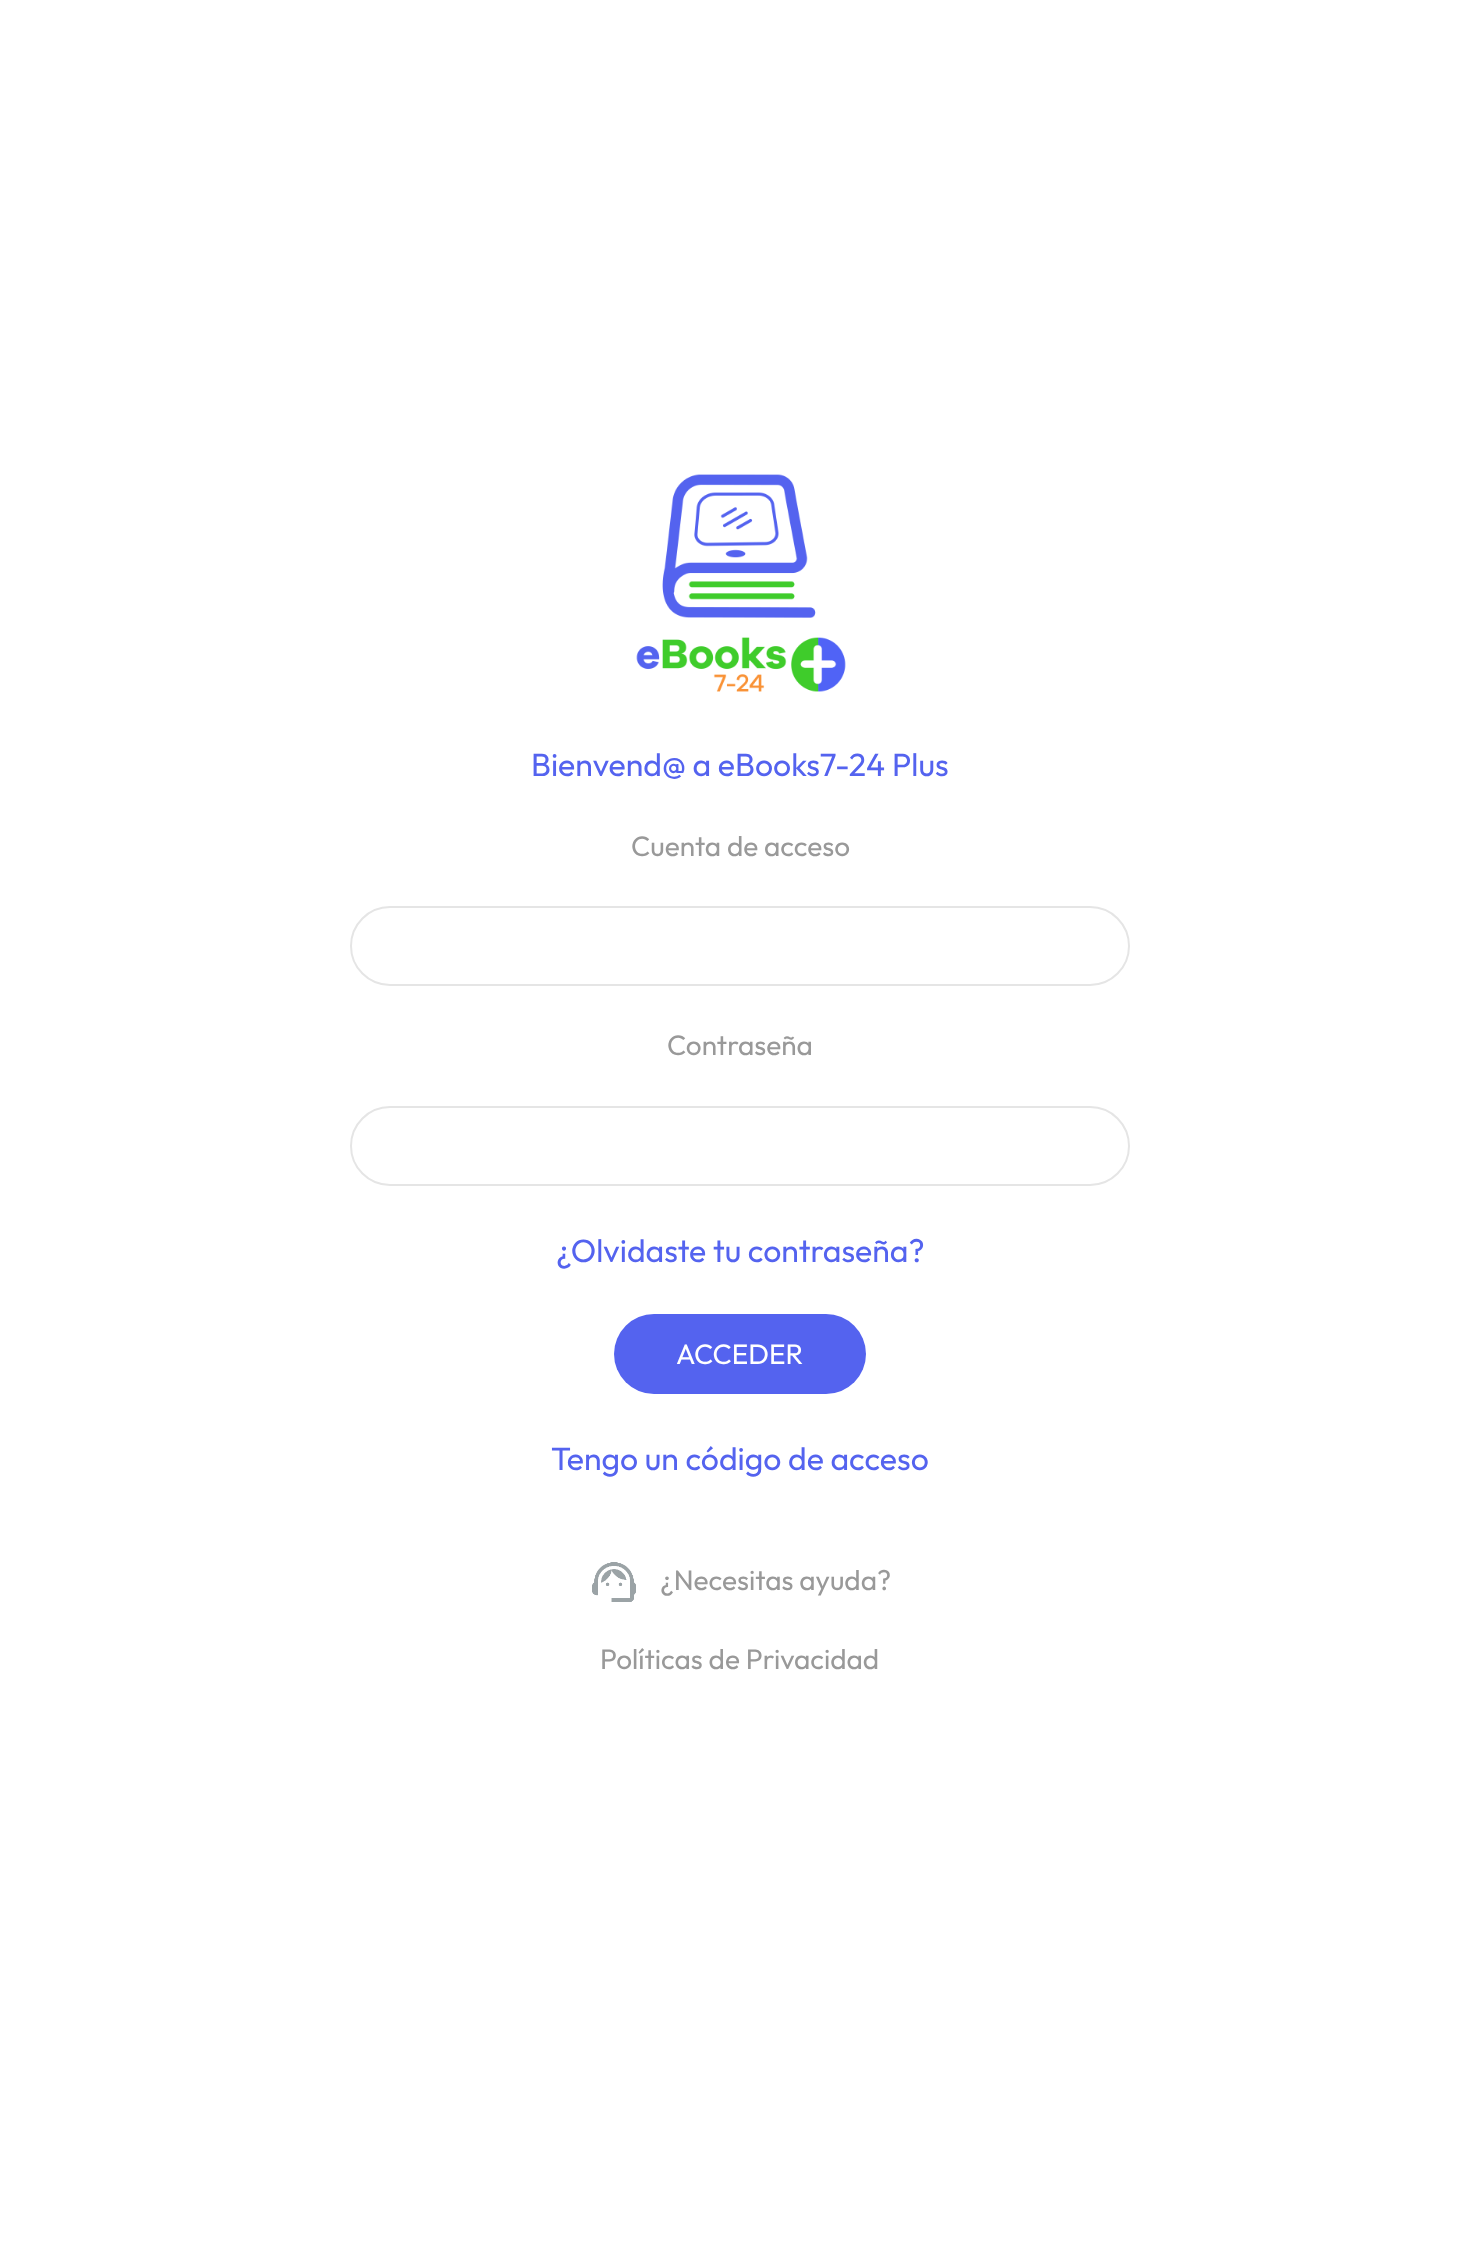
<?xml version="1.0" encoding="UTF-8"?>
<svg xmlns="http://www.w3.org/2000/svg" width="1479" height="2245">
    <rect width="100%" height="100%" fill="#FFFFFF"/>
    <image x="636" y="474" width="210" height="218" href="img_01.png"/>
    <text x="531" y="776" font-family="Outfit" font-size="32" fill="#5463EF">Bienvend@ a eBooks7-24 Plus</text>
    <text x="631" y="856" font-family="Outfit" font-size="28" fill="#999999">Cuenta de acceso</text>
    <rect x="351" y="907" width="778" height="78" rx="39" fill="none" stroke="#E5E5E5" stroke-width="2"/>
    <text x="667" y="1055" font-family="Outfit" font-size="28" fill="#999999">Contraseña</text>
    <rect x="351" y="1107" width="778" height="78" rx="39" fill="none" stroke="#E5E5E5" stroke-width="2"/>
    <text x="556" y="1262" font-family="Outfit" font-size="32" fill="#5463EF">¿Olvidaste tu contraseña?</text>
    <rect x="614" y="1314" width="252" height="80" rx="40" fill="#5463EF"/>
    <text x="676" y="1364" font-family="Outfit" font-size="28" fill="#FFFFFF">ACCEDER</text>
    <text x="551" y="1470" font-family="Outfit" font-size="32" fill="#5463EF">Tengo un código de acceso</text>
    <image x="592" y="1562" width="44" height="40" href="img_02.png"/>
    <text x="660" y="1590" font-family="Outfit" font-size="28" fill="#999999">¿Necesitas ayuda?</text>
    <text x="600" y="1669" font-family="Outfit" font-size="28" fill="#999999">Políticas de Privacidad</text>
</svg>
